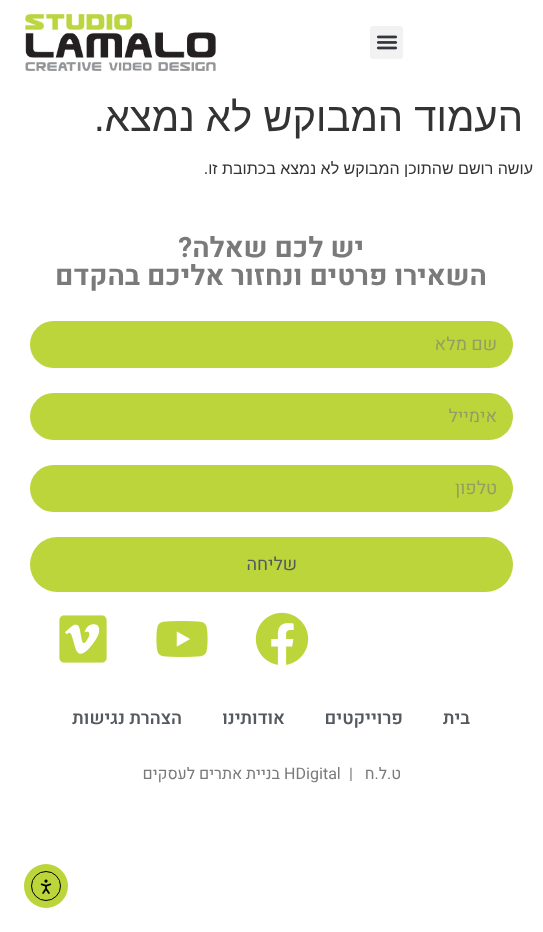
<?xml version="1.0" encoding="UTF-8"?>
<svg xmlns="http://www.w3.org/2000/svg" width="543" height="932">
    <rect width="100%" height="100%" fill="#FFFFFF"/>
    <rect x="370" y="26" width="33" height="33" rx="3" fill="#F2F2F2"/>
    <image x="376" y="35" width="22" height="15" href="img_01.png"/>
    <image x="24" y="13" width="192" height="58" href="img_02.png"/>
    <text x="523" y="131" font-family="Liberation Sans" font-size="40" direction="rtl" fill="#333333">העמוד המבוקש לא נמצא.</text>
    <text x="533" y="174" font-family="Liberation Sans" font-size="16" direction="rtl" fill="#333333">עושה רושם שהתוכן המבוקש לא נמצא בכתובת זו.</text>
    <text x="364" y="257" font-family="Heebo" font-size="28" font-weight="700" direction="rtl" fill="#7A7A7A">יש לכם שאלה?</text>
    <text x="487" y="285" font-family="Heebo" font-size="28" font-weight="700" direction="rtl" fill="#7A7A7A">השאירו פרטים ונחזור אליכם בהקדם</text>
    <rect x="30" y="321" width="483" height="47" rx="23.5" fill="#BBD53B"/>
    <text x="497" y="350" font-family="Heebo" font-size="18" direction="rtl" fill="#949E61">שם מלא</text>
    <rect x="30" y="393" width="483" height="47" rx="23.5" fill="#BBD53B"/>
    <text x="497" y="422" font-family="Heebo" font-size="18" direction="rtl" fill="#949E61">אימייל</text>
    <rect x="30" y="465" width="483" height="47" rx="23.5" fill="#BBD53B"/>
    <text x="497" y="494" font-family="Heebo" font-size="18" direction="rtl" fill="#949E61">טלפון</text>
    <rect x="30" y="537" width="483" height="55" rx="27.5" fill="#BBD53B"/>
    <text x="297" y="570" font-family="Heebo" font-size="18" direction="rtl" fill="#54595F">שליחה</text>
    <image x="255" y="612" width="54" height="53" href="img_03.png"/>
    <image x="156" y="621" width="52" height="36" href="img_04.png"/>
    <image x="59" y="615" width="48" height="48" href="img_05.png"/>
    <text x="470" y="724" font-family="Heebo" font-size="18" font-weight="600" direction="rtl" fill="#54595F">בית</text>
    <text x="403" y="724" font-family="Heebo" font-size="18" font-weight="600" direction="rtl" fill="#54595F">פרוייקטים</text>
    <text x="285" y="724" font-family="Heebo" font-size="18" font-weight="600" direction="rtl" fill="#54595F">אודותינו</text>
    <text x="182" y="724" font-family="Heebo" font-size="18" font-weight="600" direction="rtl" fill="#54595F">הצהרת נגישות</text>
    <text x="401" y="779" font-family="Heebo" font-size="16" direction="rtl" fill="#7A7A7A" xml:space="preserve">ט.ל.ח   |</text>
    <text x="284" y="779" font-family="Heebo" font-size="16" fill="#7A7A7A">HDigital</text>
    <text x="280" y="779" font-family="Heebo" font-size="16" direction="rtl" fill="#7A7A7A">בניית אתרים לעסקים</text>
    <circle cx="46" cy="886" r="22" fill="#BBD53B"/>
    <circle cx="46" cy="886" r="14.5" fill="none" stroke="#000000"/>
    <image x="40" y="879" width="12" height="15" href="img_06.png"/>
</svg>
